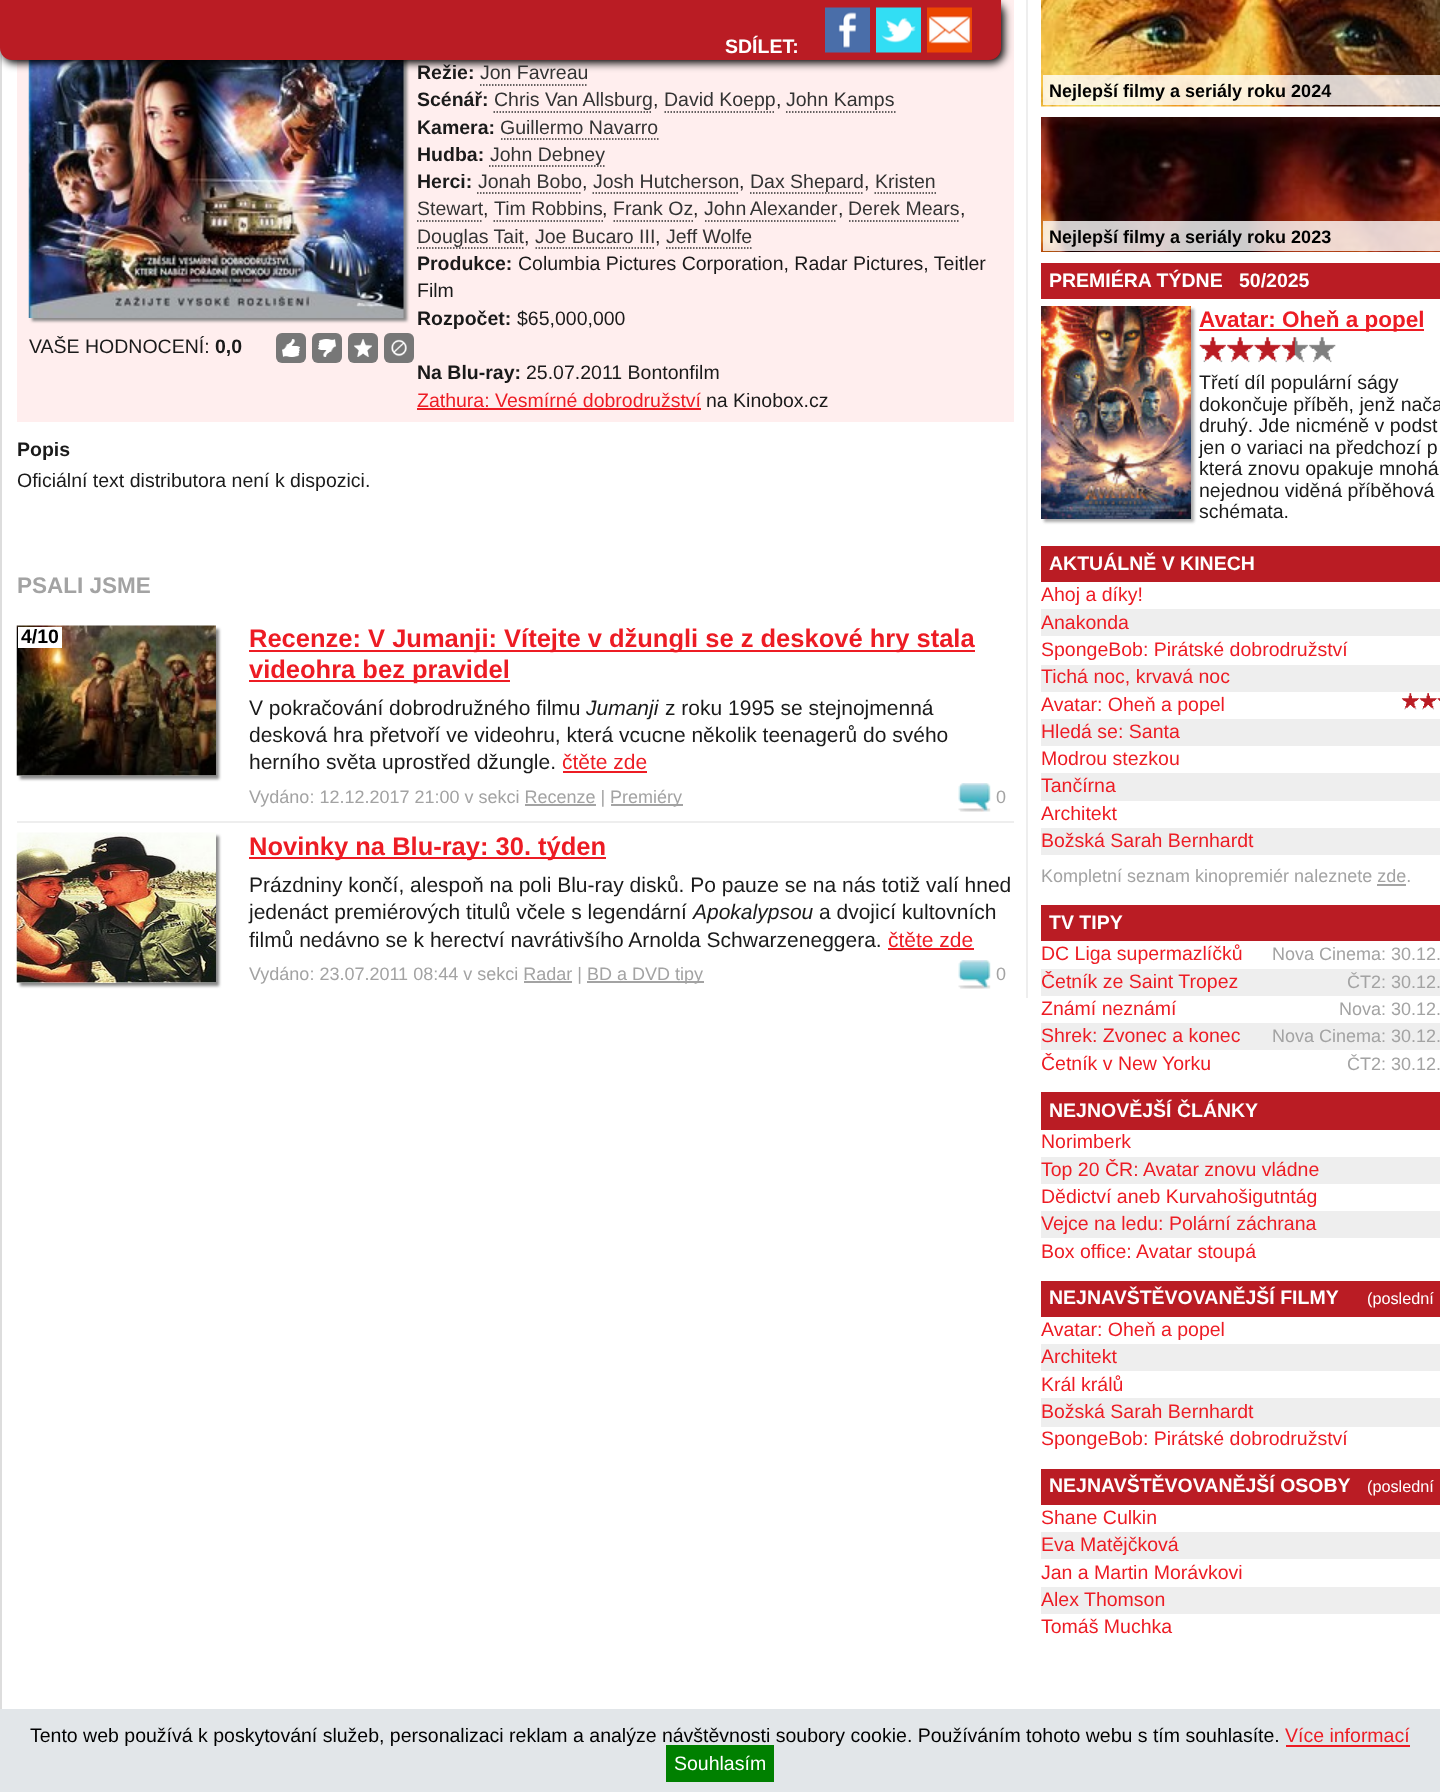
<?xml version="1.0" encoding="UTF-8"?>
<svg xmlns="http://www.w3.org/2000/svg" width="1440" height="1792">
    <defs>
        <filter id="blur1" x="-50%" y="-200%" width="200%" height="500%"><feGaussianBlur stdDeviation="1.5"/></filter>
        <filter id="blur2" x="-50%" y="-200%" width="200%" height="500%"><feGaussianBlur stdDeviation="4"/></filter>
        <clipPath id="clip1"><path d="M 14 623 H 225 V 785 H 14 Z M 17 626 H 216 V 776 H 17 Z" clip-rule="evenodd"/></clipPath>
        <clipPath id="clip2"><path d="M 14 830 H 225 V 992 H 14 Z M 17 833 H 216 V 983 H 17 Z" clip-rule="evenodd"/></clipPath>
    </defs>
    <rect width="100%" height="100%" fill="#FFFFFF"/>
    <rect x="0" y="48" width="2" height="1661" fill="#DDDDDD"/>
    <rect x="1026" y="0" width="2" height="998" fill="#EEEEEE"/>
    <rect x="17" y="0" width="997" height="422" fill="#FFEEEE"/>
    <rect x="32" y="-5" width="375" height="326" fill="#888888" filter="url(#blur1)"/>
    <image x="28" y="60" width="376" height="258" href="img_04.png"/>
    <rect x="3" y="3" width="1001" height="60" rx="12" fill="#000000" filter="url(#blur2)"/>
    <path d="M 0 0 H 1001 V 48 C 1001 54.5 995.5 60 989 60 H 12 C 5.5 60 0 54.5 0 48 Z" fill="#BA1C24"/>
    <text x="725" y="53" font-family="Liberation Sans" font-size="19.5" font-weight="700" fill="#FFFFFF">SDÍLET:</text>
    <image x="825" y="7" width="45" height="46" href="img_01.png"/>
    <image x="876" y="7" width="45" height="46" href="img_02.png"/>
    <image x="927" y="7" width="45" height="46" href="img_03.png"/>
    <text x="29" y="353" font-family="Liberation Sans" font-size="19.5" fill="#1A1A1A">VAŠE HODNOCENÍ:</text>
    <text x="215" y="353" font-family="Liberation Sans" font-size="19.5" font-weight="700" fill="#1A1A1A">0,0</text>
    <rect x="276" y="333" width="30" height="30" rx="6" fill="#777777"/>
    <image x="282" y="339" width="18" height="18" href="img_05.png"/>
    <rect x="312" y="333" width="30" height="30" rx="6" fill="#777777"/>
    <image x="318" y="339" width="18" height="18" href="img_06.png"/>
    <rect x="348" y="333" width="30" height="30" rx="6" fill="#777777"/>
    <image x="354" y="339" width="18" height="18" href="img_07.png"/>
    <rect x="384" y="333" width="30" height="30" rx="6" fill="#777777"/>
    <image x="391" y="339" width="16" height="18" href="img_08.png"/>
    <text x="417" y="79" font-family="Liberation Sans" font-size="19.5" font-weight="700" fill="#1A1A1A">Režie:</text>
    <text x="480" y="79" font-family="Liberation Sans" font-size="19.5" fill="#333333">Jon Favreau</text>
    <path d="M 480 85 H 588" fill="none" stroke="#333333" stroke-width="1.5" stroke-dasharray="1.5 1.5"/>
    <text x="417" y="106" font-family="Liberation Sans" font-size="19.5" font-weight="700" fill="#1A1A1A">Scénář:</text>
    <text x="494" y="106" font-family="Liberation Sans" font-size="19.5" fill="#333333">Chris Van Allsburg</text>
    <path d="M 493.5 112 H 652.5" fill="none" stroke="#333333" stroke-width="1.5" stroke-dasharray="1.5 1.5"/>
    <text x="653" y="106" font-family="Liberation Sans" font-size="19.5" fill="#1A1A1A">,</text>
    <text x="664" y="106" font-family="Liberation Sans" font-size="19.5" fill="#333333">David Koepp</text>
    <path d="M 664.5 112 H 775.5" fill="none" stroke="#333333" stroke-width="1.5" stroke-dasharray="1.5 1.5"/>
    <text x="776" y="106" font-family="Liberation Sans" font-size="19.5" fill="#1A1A1A">,</text>
    <text x="786" y="106" font-family="Liberation Sans" font-size="19.5" fill="#333333">John Kamps</text>
    <path d="M 786 112 H 895.5" fill="none" stroke="#333333" stroke-width="1.5" stroke-dasharray="1.5 1.5"/>
    <text x="417" y="134" font-family="Liberation Sans" font-size="19.5" font-weight="700" fill="#1A1A1A">Kamera:</text>
    <text x="500" y="134" font-family="Liberation Sans" font-size="19.5" fill="#333333">Guillermo Navarro</text>
    <path d="M 501 139 H 658.5" fill="none" stroke="#333333" stroke-width="1.5" stroke-dasharray="1.5 1.5"/>
    <text x="417" y="161" font-family="Liberation Sans" font-size="19.5" font-weight="700" fill="#1A1A1A">Hudba:</text>
    <path d="M 489 166 H 604.5" fill="none" stroke="#333333" stroke-width="1.5" stroke-dasharray="1.5 1.5"/>
    <text x="490" y="161" font-family="Liberation Sans" font-size="19.5" fill="#333333">John Debney</text>
    <text x="417" y="188" font-family="Liberation Sans" font-size="19.5" font-weight="700" fill="#1A1A1A">Herci:</text>
    <text x="478" y="188" font-family="Liberation Sans" font-size="19.5" fill="#333333">Jonah Bobo</text>
    <path d="M 477 193 H 582" fill="none" stroke="#333333" stroke-width="1.5" stroke-dasharray="1.5 1.5"/>
    <text x="582" y="188" font-family="Liberation Sans" font-size="19.5" fill="#1A1A1A">,</text>
    <text x="593" y="188" font-family="Liberation Sans" font-size="19.5" fill="#333333">Josh Hutcherson</text>
    <path d="M 592.5 193 H 739.5" fill="none" stroke="#333333" stroke-width="1.5" stroke-dasharray="1.5 1.5"/>
    <text x="739" y="188" font-family="Liberation Sans" font-size="19.5" fill="#1A1A1A">,</text>
    <path d="M 750 193 H 864" fill="none" stroke="#333333" stroke-width="1.5" stroke-dasharray="1.5 1.5"/>
    <text x="750" y="188" font-family="Liberation Sans" font-size="19.5" fill="#333333">Dax Shepard</text>
    <text x="864" y="188" font-family="Liberation Sans" font-size="19.5" fill="#1A1A1A">,</text>
    <text x="875" y="188" font-family="Liberation Sans" font-size="19.5" fill="#333333">Kristen</text>
    <path d="M 874.5 193 H 936" fill="none" stroke="#333333" stroke-width="1.5" stroke-dasharray="1.5 1.5"/>
    <text x="417" y="215" font-family="Liberation Sans" font-size="19.5" fill="#333333">Stewart</text>
    <path d="M 417 221 H 483" fill="none" stroke="#333333" stroke-width="1.5" stroke-dasharray="1.5 1.5"/>
    <text x="483" y="215" font-family="Liberation Sans" font-size="19.5" fill="#1A1A1A">,</text>
    <text x="494" y="215" font-family="Liberation Sans" font-size="19.5" fill="#333333">Tim Robbins</text>
    <path d="M 493.5 221 H 603" fill="none" stroke="#333333" stroke-width="1.5" stroke-dasharray="1.5 1.5"/>
    <text x="602" y="215" font-family="Liberation Sans" font-size="19.5" fill="#1A1A1A">,</text>
    <text x="613" y="215" font-family="Liberation Sans" font-size="19.5" fill="#333333">Frank Oz</text>
    <path d="M 613.5 221 H 693" fill="none" stroke="#333333" stroke-width="1.5" stroke-dasharray="1.5 1.5"/>
    <text x="693" y="215" font-family="Liberation Sans" font-size="19.5" fill="#1A1A1A">,</text>
    <text x="704" y="215" word-spacing="-1" font-family="Liberation Sans" font-size="19.5" fill="#333333">John Alexander</text>
    <path d="M 705 221 H 837" fill="none" stroke="#333333" stroke-width="1.5" stroke-dasharray="1.5 1.5"/>
    <text x="838" y="215" font-family="Liberation Sans" font-size="19.5" fill="#1A1A1A">,</text>
    <text x="848" y="215" font-family="Liberation Sans" font-size="19.5" fill="#333333">Derek Mears</text>
    <path d="M 849 221 H 960" fill="none" stroke="#333333" stroke-width="1.5" stroke-dasharray="1.5 1.5"/>
    <text x="960" y="215" font-family="Liberation Sans" font-size="19.5" fill="#1A1A1A">,</text>
    <path d="M 417 248 H 523.5" fill="none" stroke="#333333" stroke-width="1.5" stroke-dasharray="1.5 1.5"/>
    <text x="417" y="243" font-family="Liberation Sans" font-size="19.5" fill="#333333">Douglas Tait</text>
    <text x="524" y="243" font-family="Liberation Sans" font-size="19.5" fill="#1A1A1A">,</text>
    <text x="535" y="243" font-family="Liberation Sans" font-size="19.5" fill="#333333">Joe Bucaro III</text>
    <path d="M 535.5 248 H 655.5" fill="none" stroke="#333333" stroke-width="1.5" stroke-dasharray="1.5 1.5"/>
    <text x="655" y="243" font-family="Liberation Sans" font-size="19.5" fill="#1A1A1A">,</text>
    <text x="666" y="243" font-family="Liberation Sans" font-size="19.5" fill="#333333">Jeff Wolfe</text>
    <path d="M 666 248 H 751.5" fill="none" stroke="#333333" stroke-width="1.5" stroke-dasharray="1.5 1.5"/>
    <text x="417" y="270" font-family="Liberation Sans" font-size="19.5" font-weight="700" fill="#1A1A1A">Produkce:</text>
    <text x="518" y="270" font-family="Liberation Sans" font-size="19.5" fill="#1A1A1A">Columbia Pictures Corporation, Radar Pictures, Teitler</text>
    <text x="417" y="297" font-family="Liberation Sans" font-size="19.5" fill="#1A1A1A">Film</text>
    <text x="417" y="325" font-family="Liberation Sans" font-size="19.5" font-weight="700" fill="#1A1A1A">Rozpočet:</text>
    <text x="517" y="325" font-family="Liberation Sans" font-size="19.5" fill="#1A1A1A">$65,000,000</text>
    <text x="417" y="379" font-family="Liberation Sans" font-size="19.5" font-weight="700" fill="#1A1A1A">Na Blu-ray:</text>
    <text x="526" y="379" font-family="Liberation Sans" font-size="19.5" fill="#1A1A1A">25.07.2011 Bontonfilm</text>
    <text x="417" y="407" font-family="Liberation Sans" font-size="19.5" fill="#ED1C24">Zathura: Vesmírné dobrodružství</text>
    <rect x="417" y="408" width="284" height="2" fill="#ED1C24"/>
    <text x="706" y="407" font-family="Liberation Sans" font-size="19.5" fill="#1A1A1A">na Kinobox.cz</text>
    <text x="17" y="456" font-family="Liberation Sans" font-size="19.5" font-weight="700" fill="#1A1A1A">Popis</text>
    <text x="17" y="487" font-family="Liberation Sans" font-size="19.5" fill="#1A1A1A">Oficiální text distributora není k dispozici.</text>
    <text x="17" y="593" font-family="Liberation Sans" font-size="22.5" font-weight="700" fill="#A3A3A3">PSALI JSME</text>
    <image x="16" y="625" width="200" height="151" href="img_09.png"/>
    <g clip-path="url(#clip1)">
        <rect x="20" y="629" width="199" height="150" fill="#888888" filter="url(#blur1)"/>
    </g>
    <rect x="18" y="627" width="44" height="21" fill="#FFFFFF"/>
    <text x="21" y="643" font-family="Liberation Sans" font-size="19.5" font-weight="700" fill="#000000">4/10</text>
    <rect x="249" y="650" width="726" height="2" fill="#ED1C24"/>
    <text x="249" y="647" font-family="Liberation Sans" font-size="25.5" font-weight="700" fill="#ED1C24">Recenze: V Jumanji: Vítejte v džungli se z deskové hry stala</text>
    <rect x="249" y="680" width="261" height="2" fill="#ED1C24"/>
    <text x="249" y="678" font-family="Liberation Sans" font-size="25.5" font-weight="700" fill="#ED1C24">videohra bez pravidel</text>
    <text x="249" y="715" font-family="Liberation Sans" font-size="21" fill="#1A1A1A">V pokračování dobrodružného filmu</text>
    <text x="586" y="715" font-family="Liberation Sans" font-size="21" font-style="italic" fill="#1A1A1A">Jumanji</text>
    <text x="665" y="715" font-family="Liberation Sans" font-size="21" fill="#1A1A1A">z roku 1995 se stejnojmenná</text>
    <text font-family="Liberation Sans" font-size="21" fill="#1A1A1A">
        <tspan x="249" y="742">desková hra přetvoří ve videohru, která vcucne několik teenagerů do svého</tspan>
        <tspan x="249" y="769">herního světa uprostřed džungle.</tspan>
    </text>
    <text x="562" y="769" font-family="Liberation Sans" font-size="21" fill="#ED1C24">čtěte zde</text>
    <rect x="563" y="771" width="84" height="2" fill="#ED1C24"/>
    <text x="249" y="803" font-family="Liberation Sans" font-size="18" fill="#A3A3A3">Vydáno: 12.12.2017 21:00 v sekci Recenze |</text>
    <rect x="611" y="804" width="72" height="2" fill="#A3A3A3"/>
    <text x="610" y="803" font-family="Liberation Sans" font-size="18" fill="#A3A3A3">Premiéry</text>
    <image x="958" y="783" width="33" height="29" href="img_10.png"/>
    <text x="996" y="803" font-family="Liberation Sans" font-size="18" fill="#A3A3A3">0</text>
    <rect x="525" y="804" width="71" height="2" fill="#A3A3A3"/>
    <rect x="17" y="821" width="997" height="2" fill="#EEEEEE"/>
    <image x="16" y="832" width="200" height="151" href="img_11.png"/>
    <g clip-path="url(#clip2)">
        <rect x="20" y="836" width="199" height="150" fill="#888888" filter="url(#blur1)"/>
    </g>
    <rect x="249" y="857" width="357" height="2" fill="#ED1C24"/>
    <text x="249" y="855" font-family="Liberation Sans" font-size="25.5" font-weight="700" fill="#ED1C24">Novinky na Blu-ray: 30. týden</text>
    <text font-family="Liberation Sans" font-size="21" fill="#1A1A1A">
        <tspan x="249" y="892">Prázdniny končí, alespoň na poli Blu-ray disků. Po pauze se na nás totiž valí hned</tspan>
        <tspan x="249" y="919">jedenáct premiérových titulů včele s legendární</tspan>
    </text>
    <text x="693" y="919" font-family="Liberation Sans" font-size="21" font-style="italic" fill="#1A1A1A">Apokalypsou</text>
    <text x="819" y="919" font-family="Liberation Sans" font-size="21" fill="#1A1A1A">a dvojicí kultovních</text>
    <text x="249" y="947" font-family="Liberation Sans" font-size="21" fill="#1A1A1A">filmů nedávno se k herectví navrátivšího Arnolda Schwarzeneggera.</text>
    <text x="888" y="947" font-family="Liberation Sans" font-size="21" fill="#ED1C24">čtěte zde</text>
    <rect x="888" y="948" width="86" height="2" fill="#ED1C24"/>
    <text x="249" y="980" font-family="Liberation Sans" font-size="18" fill="#A3A3A3">Vydáno: 23.07.2011 08:44 v sekci Radar |</text>
    <rect x="587" y="981" width="117" height="2" fill="#A3A3A3"/>
    <text x="587" y="980" font-family="Liberation Sans" font-size="18" fill="#A3A3A3">BD a DVD tipy</text>
    <image x="958" y="960" width="33" height="29" href="img_10.png"/>
    <text x="996" y="980" font-family="Liberation Sans" font-size="18" fill="#A3A3A3">0</text>
    <rect x="524" y="981" width="48" height="2" fill="#A3A3A3"/>
    <image x="1041" y="0" width="399" height="107" href="img_12.png"/>
    <rect x="1043" y="75" width="397" height="30" fill="#FFFFFF" fill-opacity="0.8"/>
    <text x="1049" y="97" font-family="Liberation Sans" font-size="18" font-weight="700" fill="#000000">Nejlepší filmy a seriály roku 2024</text>
    <image x="1041" y="117" width="399" height="135" href="img_13.png"/>
    <rect x="1043" y="221" width="397" height="30" fill="#FFFFFF" fill-opacity="0.8"/>
    <text x="1049" y="243" font-family="Liberation Sans" font-size="18" font-weight="700" fill="#000000">Nejlepší filmy a seriály roku 2023</text>
    <rect x="1041" y="263" width="399" height="36" fill="#BA1C24"/>
    <text x="1049" y="287" font-family="Liberation Sans" font-size="19.5" font-weight="700" fill="#FFFFFF" xml:space="preserve">PREMIÉRA TÝDNE   50/2025</text>
    <rect x="1044" y="309" width="150" height="213" fill="#AAAAAA" filter="url(#blur1)"/>
    <image x="1041" y="306" width="150" height="213" href="img_14.png"/>
    <rect x="1199" y="329" width="225" height="2" fill="#ED1C24"/>
    <text x="1199" y="327" font-family="Liberation Sans" font-size="22.5" font-weight="700" fill="#ED1C24">Avatar: Oheň a popel</text>
    <image x="1199" y="337" width="137" height="26" href="img_15.png"/>
    <text font-family="Liberation Sans" font-size="19.5" fill="#1A1A1A">
        <tspan x="1199" y="389">Třetí díl populární ságy</tspan>
        <tspan x="1199" y="411">dokončuje příběh, jenž nača</tspan>
        <tspan x="1199" y="432">druhý. Jde nicméně v podst</tspan>
        <tspan x="1199" y="454">jen o variaci na předchozí p</tspan>
        <tspan x="1199" y="475">která znovu opakuje mnohá</tspan>
        <tspan x="1199" y="497">nejednou viděná příběhová</tspan>
        <tspan x="1199" y="518">schémata.</tspan>
    </text>
    <rect x="1041" y="546" width="399" height="36" fill="#BA1C24"/>
    <text x="1049" y="570" font-family="Liberation Sans" font-size="19.5" font-weight="700" fill="#FFFFFF">AKTUÁLNĚ V KINECH</text>
    <text x="1041" y="601" font-family="Liberation Sans" font-size="19.5" fill="#ED1C24">Ahoj a díky!</text>
    <rect x="1041" y="609" width="399" height="27" fill="#EEEEEE"/>
    <text font-family="Liberation Sans" font-size="19.5" fill="#ED1C24">
        <tspan x="1041" y="629">Anakonda</tspan>
        <tspan x="1041" y="656">SpongeBob: Pirátské dobrodružství</tspan>
    </text>
    <rect x="1041" y="665" width="399" height="27" fill="#EEEEEE"/>
    <text font-family="Liberation Sans" font-size="19.5" fill="#ED1C24">
        <tspan x="1041" y="683">Tichá noc, krvavá noc</tspan>
        <tspan x="1041" y="711">Avatar: Oheň a popel</tspan>
    </text>
    <image x="1401" y="693" width="39" height="17" href="img_16.png"/>
    <rect x="1041" y="719" width="399" height="27" fill="#EEEEEE"/>
    <text font-family="Liberation Sans" font-size="19.5" fill="#ED1C24">
        <tspan x="1041" y="738">Hledá se: Santa</tspan>
        <tspan x="1041" y="765">Modrou stezkou</tspan>
    </text>
    <rect x="1041" y="773" width="399" height="28" fill="#EEEEEE"/>
    <text font-family="Liberation Sans" font-size="19.5" fill="#ED1C24">
        <tspan x="1041" y="792">Tančírna</tspan>
        <tspan x="1041" y="820">Architekt</tspan>
    </text>
    <rect x="1041" y="828" width="399" height="27" fill="#EEEEEE"/>
    <text x="1041" y="847" font-family="Liberation Sans" font-size="19.5" fill="#ED1C24">Božská Sarah Bernhardt</text>
    <text x="1041" y="882" font-family="Liberation Sans" font-size="18" fill="#A3A3A3">Kompletní seznam kinopremiér naleznete zde.</text>
    <rect x="1377" y="884" width="29" height="2" fill="#A3A3A3"/>
    <rect x="1041" y="905" width="399" height="36" fill="#BA1C24"/>
    <text x="1049" y="929" font-family="Liberation Sans" font-size="19.5" font-weight="700" fill="#FFFFFF">TV TIPY</text>
    <text x="1041" y="960" font-family="Liberation Sans" font-size="19.5" fill="#ED1C24">DC Liga supermazlíčků</text>
    <text x="1272" y="960" font-family="Liberation Sans" font-size="18" fill="#A3A3A3">Nova Cinema: 30.12.</text>
    <rect x="1041" y="969" width="399" height="27" fill="#EEEEEE"/>
    <text x="1041" y="988" font-family="Liberation Sans" font-size="19.5" fill="#ED1C24">Četník ze Saint Tropez</text>
    <text x="1347" y="988" font-family="Liberation Sans" font-size="18" fill="#A3A3A3">ČT2: 30.12.</text>
    <text x="1041" y="1015" font-family="Liberation Sans" font-size="19.5" fill="#ED1C24">Známí neznámí</text>
    <text x="1339" y="1015" font-family="Liberation Sans" font-size="18" fill="#A3A3A3">Nova: 30.12.</text>
    <rect x="1041" y="1023" width="399" height="27" fill="#EEEEEE"/>
    <text x="1041" y="1042" font-family="Liberation Sans" font-size="19.5" fill="#ED1C24">Shrek: Zvonec a konec</text>
    <text x="1272" y="1042" font-family="Liberation Sans" font-size="18" fill="#A3A3A3">Nova Cinema: 30.12.</text>
    <text x="1041" y="1070" font-family="Liberation Sans" font-size="19.5" fill="#ED1C24">Četník v New Yorku</text>
    <text x="1347" y="1070" font-family="Liberation Sans" font-size="18" fill="#A3A3A3">ČT2: 30.12.</text>
    <rect x="1041" y="1092" width="399" height="38" fill="#BA1C24"/>
    <text x="1049" y="1117" font-family="Liberation Sans" font-size="19.5" font-weight="700" fill="#FFFFFF">NEJNOVĚJŠÍ ČLÁNKY</text>
    <text x="1041" y="1148" font-family="Liberation Sans" font-size="19.5" fill="#ED1C24">Norimberk</text>
    <rect x="1041" y="1157" width="399" height="27" fill="#EEEEEE"/>
    <text font-family="Liberation Sans" font-size="19.5" fill="#ED1C24">
        <tspan x="1041" y="1176">Top 20 ČR: Avatar znovu vládne</tspan>
        <tspan x="1041" y="1203">Dědictví aneb Kurvahošigutntág</tspan>
    </text>
    <rect x="1041" y="1211" width="399" height="27" fill="#EEEEEE"/>
    <text font-family="Liberation Sans" font-size="19.5" fill="#ED1C24">
        <tspan x="1041" y="1230">Vejce na ledu: Polární záchrana</tspan>
        <tspan x="1041" y="1258">Box office: Avatar stoupá</tspan>
    </text>
    <rect x="1041" y="1281" width="399" height="36" fill="#BA1C24"/>
    <text x="1049" y="1304" font-family="Liberation Sans" font-size="19.5" font-weight="700" fill="#FFFFFF">NEJNAVŠTĚVOVANĚJŠÍ FILMY</text>
    <text x="1367" y="1304" font-family="Liberation Sans" font-size="16.25" fill="#FFFFFF">(poslední</text>
    <text x="1041" y="1336" font-family="Liberation Sans" font-size="19.5" fill="#ED1C24">Avatar: Oheň a popel</text>
    <rect x="1041" y="1344" width="399" height="27" fill="#EEEEEE"/>
    <text font-family="Liberation Sans" font-size="19.5" fill="#ED1C24">
        <tspan x="1041" y="1363">Architekt</tspan>
        <tspan x="1041" y="1391">Král králů</tspan>
    </text>
    <rect x="1041" y="1398" width="399" height="29" fill="#EEEEEE"/>
    <text font-family="Liberation Sans" font-size="19.5" fill="#ED1C24">
        <tspan x="1041" y="1418">Božská Sarah Bernhardt</tspan>
        <tspan x="1041" y="1445">SpongeBob: Pirátské dobrodružství</tspan>
    </text>
    <rect x="1041" y="1469" width="399" height="36" fill="#BA1C24"/>
    <text x="1049" y="1492" font-family="Liberation Sans" font-size="19.5" font-weight="700" fill="#FFFFFF">NEJNAVŠTĚVOVANĚJŠÍ OSOBY</text>
    <text x="1367" y="1492" font-family="Liberation Sans" font-size="16.25" fill="#FFFFFF">(poslední</text>
    <text x="1041" y="1524" font-family="Liberation Sans" font-size="19.5" fill="#ED1C24">Shane Culkin</text>
    <rect x="1041" y="1532" width="399" height="27" fill="#EEEEEE"/>
    <text font-family="Liberation Sans" font-size="19.5" fill="#ED1C24">
        <tspan x="1041" y="1551">Eva Matějčková</tspan>
        <tspan x="1041" y="1579">Jan a Martin Morávkovi</tspan>
    </text>
    <rect x="1041" y="1587" width="399" height="27" fill="#EEEEEE"/>
    <text font-family="Liberation Sans" font-size="19.5" fill="#ED1C24">
        <tspan x="1041" y="1606">Alex Thomson</tspan>
        <tspan x="1041" y="1633">Tomáš Muchka</tspan>
    </text>
    <rect x="0" y="1709" width="1440" height="83" fill="#E2E6E9"/>
    <text x="30" y="1742" font-family="Liberation Sans" font-size="19.5" fill="#000000">Tento web používá k poskytování služeb, personalizaci reklam a analýze návštěvnosti soubory cookie. Používáním tohoto webu s tím souhlasíte.</text>
    <text x="1285" y="1742" font-family="Liberation Sans" font-size="19.5" fill="#ED1C24">Více informací</text>
    <rect x="1286" y="1745" width="124" height="2" fill="#ED1C24"/>
    <rect x="666" y="1745" width="108" height="37" fill="#008000"/>
    <text x="674" y="1770" font-family="Liberation Sans" font-size="19.5" fill="#FFFFFF">Souhlasím</text>
</svg>
